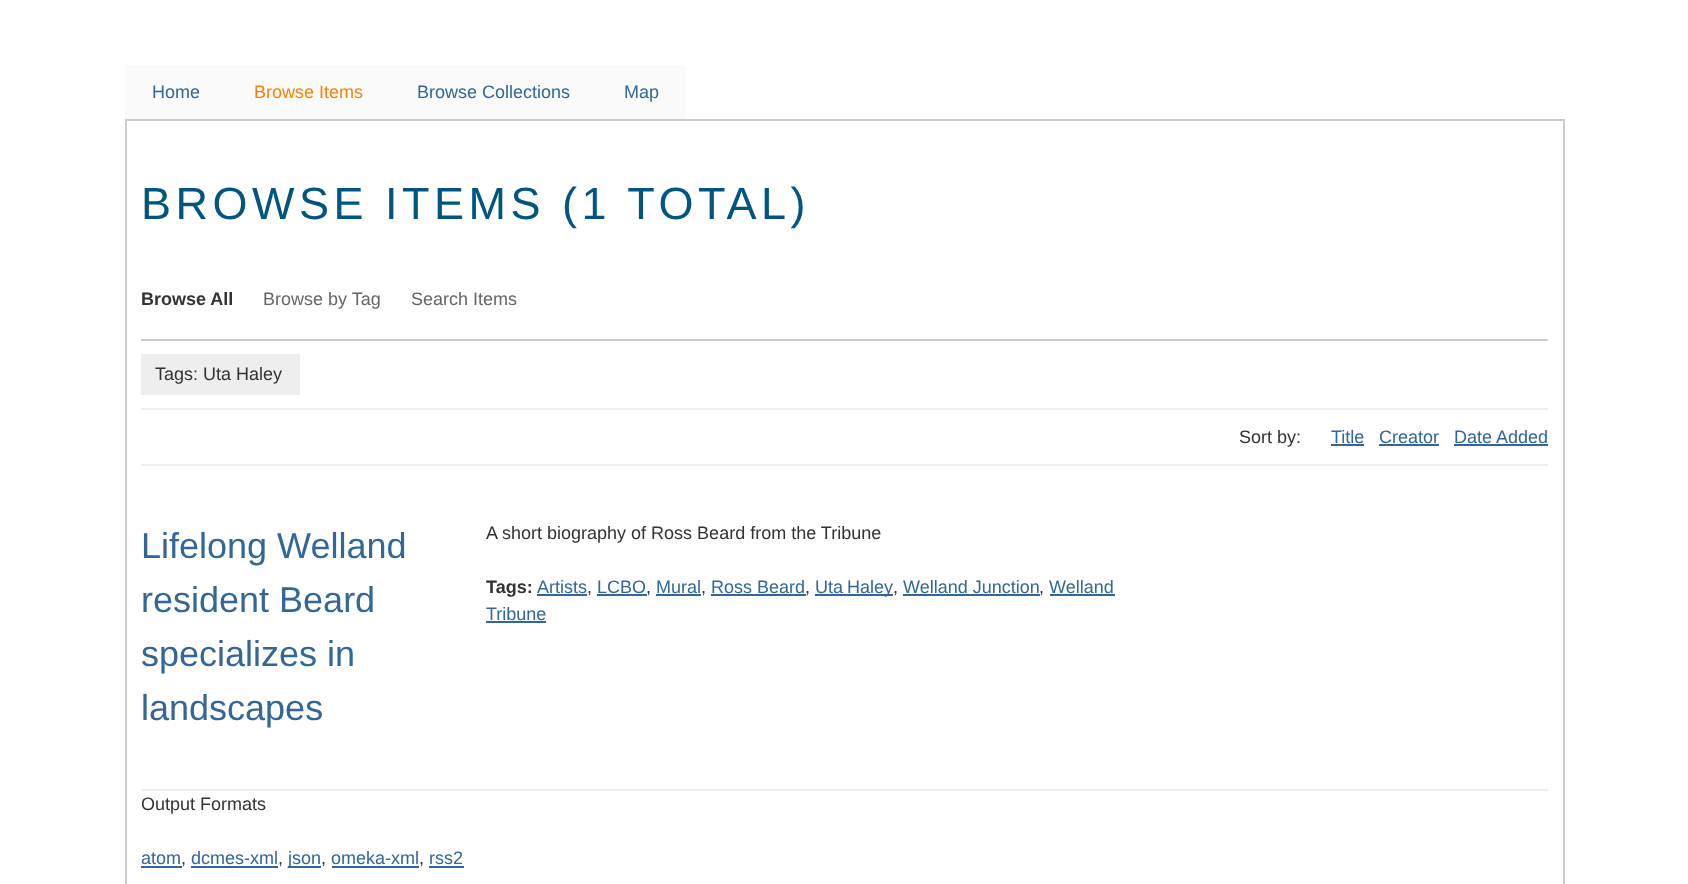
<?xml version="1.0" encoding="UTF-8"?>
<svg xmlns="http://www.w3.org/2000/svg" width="1688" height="884">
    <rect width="100%" height="100%" fill="#FFFFFF"/>
    <rect x="125" y="65" width="102" height="54" fill="#FAFAFA"/>
    <text x="152" y="98" font-family="Liberation Sans" font-size="18" fill="#336699">Home</text>
    <rect x="227" y="65" width="459" height="54" fill="#FAFAFA"/>
    <text x="254" y="98" font-family="Liberation Sans" font-size="18" fill="#FF8000">Browse Items</text>
    <text x="417" y="98" font-family="Liberation Sans" font-size="18" fill="#336699">Browse Collections</text>
    <text x="624" y="98" font-family="Liberation Sans" font-size="18" fill="#336699">Map</text>
    <rect x="126" y="120" width="1438" height="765" fill="none" stroke="#CCCCCC" stroke-width="2"/>
    <text x="141" y="219" font-family="Liberation Sans" font-size="45" letter-spacing="4.5" fill="#015581">BROWSE ITEMS (1 TOTAL)</text>
    <rect x="141" y="339" width="1407" height="2" fill="#CCCCCC"/>
    <text x="141" y="305" font-family="Liberation Sans" font-size="18" font-weight="700" fill="#333333">Browse All</text>
    <text x="263" y="305" font-family="Liberation Sans" font-size="18" fill="#666666">Browse by Tag</text>
    <text x="411" y="305" font-family="Liberation Sans" font-size="18" fill="#666666">Search Items</text>
    <rect x="141" y="408" width="1407" height="2" fill="#EEEEEE"/>
    <rect x="141" y="354" width="159" height="41" fill="#EEEEEE"/>
    <text x="155" y="380" font-family="Liberation Sans" font-size="18" fill="#333333">Tags: Uta Haley</text>
    <text x="1239" y="443" font-family="Liberation Sans" font-size="18" fill="#333333">Sort by:</text>
    <text x="1331" y="443" font-family="Liberation Sans" font-size="18" fill="#336699">Title</text>
    <rect x="1331" y="444" width="33" height="2" fill="#336699"/>
    <text x="1379" y="443" font-family="Liberation Sans" font-size="18" fill="#336699">Creator</text>
    <rect x="1379" y="444" width="60" height="2" fill="#336699"/>
    <text x="1454" y="443" font-family="Liberation Sans" font-size="18" fill="#336699">Date Added</text>
    <rect x="1454" y="444" width="94" height="2" fill="#336699"/>
    <rect x="141" y="464" width="1407" height="2" fill="#EEEEEE"/>
    <rect x="141" y="789" width="1407" height="2" fill="#EEEEEE"/>
    <text font-family="Liberation Sans" font-size="36" fill="#336699">
        <tspan x="141" y="558">Lifelong Welland</tspan>
        <tspan x="141" y="612">resident Beard</tspan>
        <tspan x="141" y="666">specializes in</tspan>
        <tspan x="141" y="720">landscapes</tspan>
    </text>
    <text x="486" y="539" font-family="Liberation Sans" font-size="18" fill="#333333">A short biography of Ross Beard from the Tribune</text>
    <text x="486" y="593" font-family="Liberation Sans" font-size="18" font-weight="700" fill="#333333">Tags:</text>
    <text x="537" y="593" font-family="Liberation Sans" font-size="18" fill="#336699">Artists</text>
    <rect x="537" y="594" width="50" height="2" fill="#336699"/>
    <text x="587" y="593" font-family="Liberation Sans" font-size="18" fill="#333333">,</text>
    <text x="597" y="593" font-family="Liberation Sans" font-size="18" fill="#336699">LCBO</text>
    <rect x="597" y="594" width="50" height="2" fill="#336699"/>
    <text x="646" y="593" font-family="Liberation Sans" font-size="18" fill="#333333">,</text>
    <text x="656" y="593" font-family="Liberation Sans" font-size="18" fill="#336699">Mural</text>
    <rect x="656" y="594" width="45" height="2" fill="#336699"/>
    <text x="701" y="593" font-family="Liberation Sans" font-size="18" fill="#333333">,</text>
    <text x="711" y="593" font-family="Liberation Sans" font-size="18" fill="#336699">Ross Beard</text>
    <rect x="711" y="594" width="95" height="2" fill="#336699"/>
    <text x="805" y="593" font-family="Liberation Sans" font-size="18" fill="#333333">,</text>
    <rect x="815" y="594" width="78" height="2" fill="#336699"/>
    <text x="815" y="593" word-spacing="-1" font-family="Liberation Sans" font-size="18" fill="#336699">Uta Haley</text>
    <text x="893" y="593" font-family="Liberation Sans" font-size="18" fill="#333333">,</text>
    <text x="903" y="593" font-family="Liberation Sans" font-size="18" fill="#336699">Welland Junction</text>
    <rect x="903" y="594" width="137" height="2" fill="#336699"/>
    <text x="1039" y="593" font-family="Liberation Sans" font-size="18" fill="#333333">,</text>
    <text x="1049" y="593" font-family="Liberation Sans" font-size="18" fill="#336699">Welland</text>
    <rect x="1050" y="594" width="65" height="2" fill="#336699"/>
    <text x="486" y="620" font-family="Liberation Sans" font-size="18" fill="#336699">Tribune</text>
    <rect x="486" y="621" width="60" height="2" fill="#336699"/>
    <text x="141" y="810" font-family="Liberation Sans" font-size="18" fill="#333333">Output Formats</text>
    <text x="141" y="864" font-family="Liberation Sans" font-size="18" fill="#336699">atom</text>
    <rect x="141" y="866" width="41" height="2" fill="#336699"/>
    <text x="181" y="864" font-family="Liberation Sans" font-size="18" fill="#333333">,</text>
    <text x="191" y="864" font-family="Liberation Sans" font-size="18" fill="#336699">dcmes-xml</text>
    <rect x="191" y="866" width="87" height="2" fill="#336699"/>
    <text x="278" y="864" font-family="Liberation Sans" font-size="18" fill="#333333">,</text>
    <rect x="288" y="866" width="33" height="2" fill="#336699"/>
    <text x="288" y="864" font-family="Liberation Sans" font-size="18" fill="#336699">json</text>
    <text x="321" y="864" font-family="Liberation Sans" font-size="18" fill="#333333">,</text>
    <text x="331" y="864" font-family="Liberation Sans" font-size="18" fill="#336699">omeka-xml</text>
    <rect x="332" y="866" width="87" height="2" fill="#336699"/>
    <text x="419" y="864" font-family="Liberation Sans" font-size="18" fill="#333333">,</text>
    <text x="429" y="864" font-family="Liberation Sans" font-size="18" fill="#336699">rss2</text>
    <rect x="429" y="866" width="35" height="2" fill="#336699"/>
</svg>
